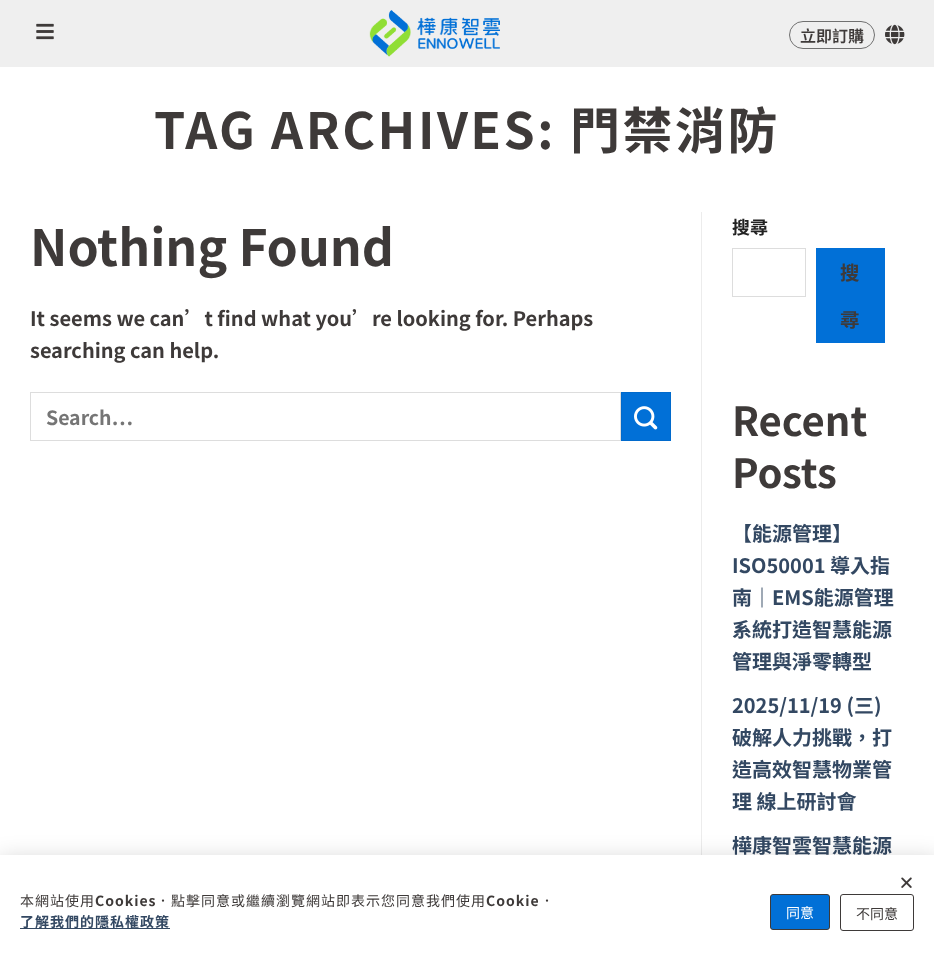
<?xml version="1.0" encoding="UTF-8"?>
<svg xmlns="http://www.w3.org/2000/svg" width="934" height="970">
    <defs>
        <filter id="blur1" x="-50%" y="-200%" width="200%" height="500%"><feGaussianBlur stdDeviation="11.5"/></filter>
    </defs>
    <rect width="100%" height="100%" fill="#FFFFFF"/>
    <rect x="0" y="0" width="934" height="67" fill="#EFEFEF"/>
    <image x="36" y="23" width="18" height="17" href="img_01.png"/>
    <image x="369" y="10" width="131" height="47" href="img_02.png"/>
    <rect x="789.5" y="21.5" width="85" height="27" rx="13.5" fill="none" stroke="#707070"/>
    <text x="800" y="42" font-family="Noto Sans TC" font-size="16" font-weight="600" fill="#3E3A39">立即訂購</text>
    <image x="885" y="24" width="20" height="21" href="img_03.png"/>
    <text x="154" y="149" font-family="Noto Sans TC" font-size="50" font-weight="700" letter-spacing="2.5" fill="#3E3A39">TAG ARCHIVES:</text>
    <text x="570" y="149" font-family="'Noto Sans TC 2'" font-size="50" font-weight="700" letter-spacing="2.5" fill="#3E3A39">門禁消防</text>
    <text x="30" y="266" font-family="Noto Sans TC" font-size="50" font-weight="700" fill="#3E3A39">Nothing Found</text>
    <text font-family="Noto Sans TC" font-size="20" font-weight="700" fill="#3E3A39">
        <tspan x="30" y="326">It seems we can’t find what you’re looking for. Perhaps</tspan>
        <tspan x="30" y="358">searching can help.</tspan>
    </text>
    <rect x="30.5" y="392.5" width="590" height="48" fill="none" stroke="#DDDDDD"/>
    <text x="46" y="425" font-family="Noto Sans TC" font-size="19.5" font-weight="700" fill="#757575">Search…</text>
    <rect x="621.5" y="392.5" width="49" height="48" fill="#0170D7" stroke="#016ACC"/>
    <image x="634" y="406" width="24" height="24" href="img_04.png"/>
    <rect x="701" y="212" width="1" height="643" fill="#ECECEC"/>
    <text x="732" y="234" font-family="'Noto Sans TC 2'" font-size="18" font-weight="700" fill="#222222">搜尋</text>
    <rect x="732.5" y="248.5" width="73" height="48" fill="none" stroke="#DDDDDD"/>
    <rect x="816" y="248" width="69" height="95" fill="#0170D7"/>
    <text x="840" y="280" font-family="'Noto Sans TC 2'" font-size="19.5" font-weight="700" letter-spacing="1" fill="#3E3A39">搜</text>
    <text x="840" y="327" font-family="'Noto Sans TC 2'" font-size="19.5" font-weight="700" letter-spacing="1" fill="#3E3A39">尋</text>
    <text font-family="Noto Sans TC" font-size="40" font-weight="700" fill="#3E3A39">
        <tspan x="732" y="436">Recent</tspan>
        <tspan x="732" y="488">Posts</tspan>
    </text>
    <text font-family="'Noto Sans TC 2'" font-size="20" font-weight="700" fill="#334862">
        <tspan x="732" y="541">【能源管理】</tspan>
        <tspan x="732" y="573">ISO50001 導入指</tspan>
        <tspan x="732" y="605">南｜EMS能源管理</tspan>
        <tspan x="732" y="637">系統打造智慧能源</tspan>
        <tspan x="732" y="669">管理與淨零轉型</tspan>
    </text>
    <text font-family="'Noto Sans TC 2'" font-size="20" font-weight="700" fill="#334862">
        <tspan x="732" y="713">2025/11/19 (三)</tspan>
        <tspan x="732" y="745">破解人力挑戰，打</tspan>
        <tspan x="732" y="777">造高效智慧物業管</tspan>
        <tspan x="732" y="809">理 線上研討會</tspan>
    </text>
    <text x="732" y="853" font-family="'Noto Sans TC 2'" font-size="20" font-weight="700" fill="#334862">樺康智雲智慧能源</text>
    <rect x="-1" y="860" width="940" height="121" fill="#000000" fill-opacity="0.2" filter="url(#blur1)"/>
    <rect x="0" y="855" width="934" height="115" fill="#FFFFFF"/>
    <image x="901" y="877" width="11" height="11" href="img_05.png"/>
    <text x="20" y="906" font-family="Noto Sans CJK TC" font-size="14" letter-spacing="1" fill="#3E3A39">本網站使用</text>
    <text x="95" y="906" font-family="Noto Sans TC" font-size="14" font-weight="700" letter-spacing="1" fill="#3E3A39">Cookies</text>
    <text x="156" y="906" font-family="Noto Sans CJK TC" font-size="14" letter-spacing="1" fill="#3E3A39">．點擊同意或繼續瀏覽網站即表示您同意我們使用</text>
    <text x="486" y="906" font-family="Noto Sans TC" font-size="14" font-weight="700" letter-spacing="1" fill="#3E3A39">Cookie</text>
    <text x="540" y="906" font-family="Noto Sans CJK TC" font-size="14" letter-spacing="1" fill="#3E3A39">．</text>
    <rect x="20" y="928" width="150" height="1" fill="#334862"/>
    <text x="20" y="927" font-family="'Noto Sans TC 2'" font-size="14" font-weight="700" letter-spacing="1" fill="#334862">了解我們的隱私權政策</text>
    <rect x="770.5" y="894.5" width="59" height="35" rx="2.5" fill="#0170D7" stroke="#3E3A39"/>
    <text x="786" y="918" font-family="Noto Sans CJK TC" font-size="14" fill="#FFFFFF">同意</text>
    <rect x="840.5" y="894.5" width="73" height="36" rx="2.5" fill="none" stroke="#3E3A39"/>
    <text x="856" y="919" font-family="Noto Sans CJK TC" font-size="14" fill="#3E3A39">不同意</text>
</svg>
